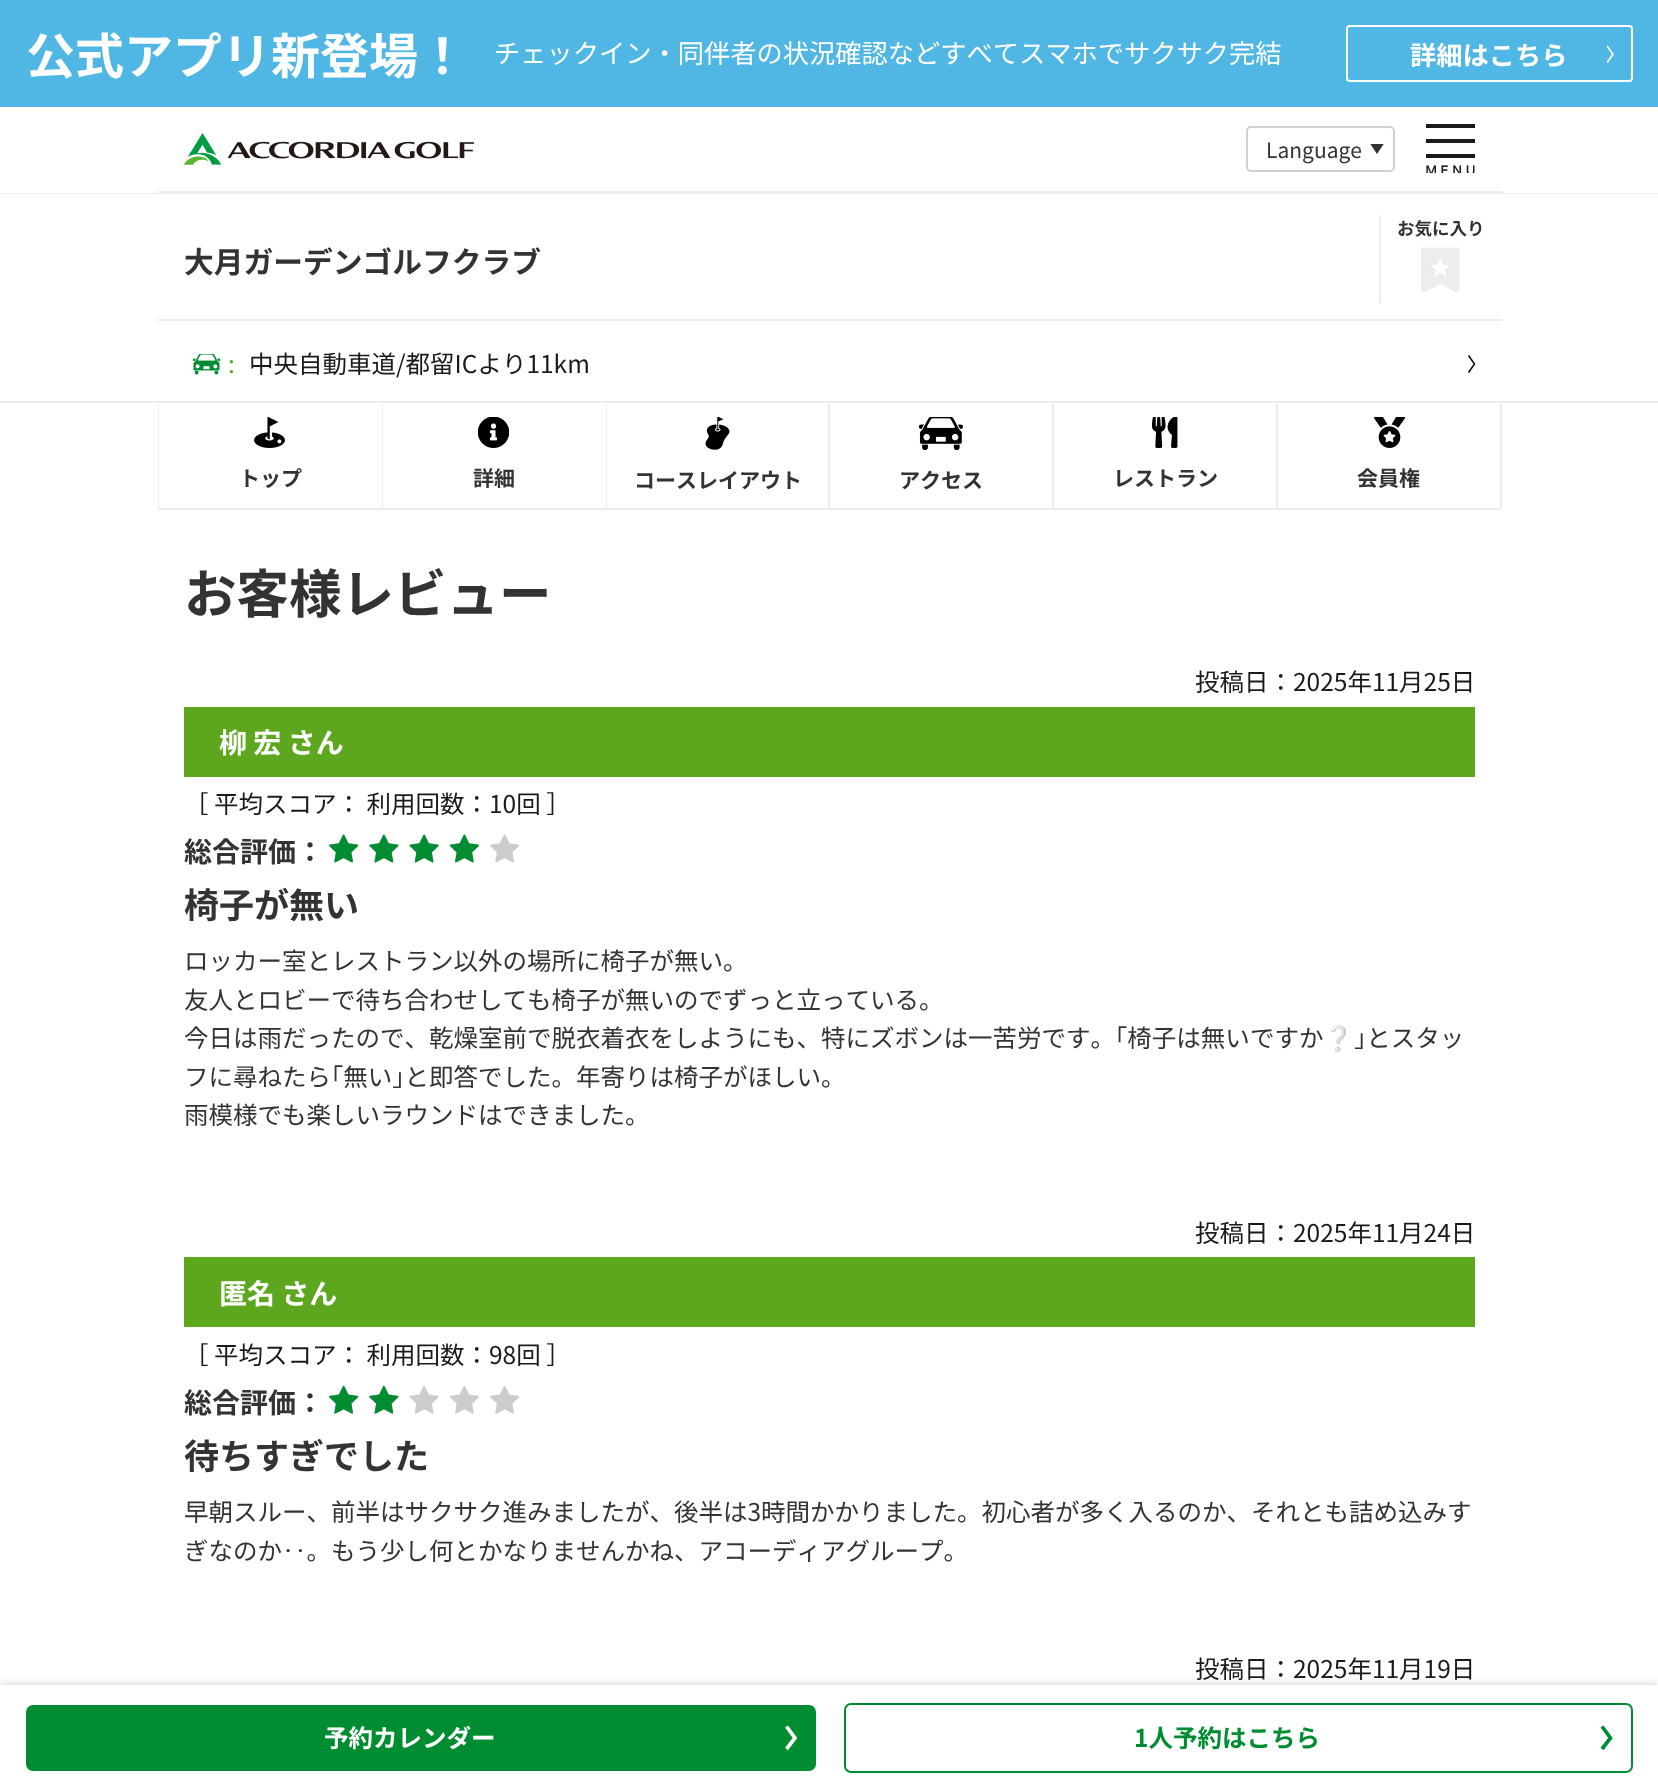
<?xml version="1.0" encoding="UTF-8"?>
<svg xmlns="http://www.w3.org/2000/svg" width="1658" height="1789">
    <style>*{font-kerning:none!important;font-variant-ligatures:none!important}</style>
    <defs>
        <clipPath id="clip1"><rect x="1607" y="44" width="7" height="21"/></clipPath>
        <clipPath id="clip2"><rect x="1370" y="144" width="14" height="10"/></clipPath>
        <filter id="blur1" x="-50%" y="-200%" width="200%" height="500%"><feGaussianBlur stdDeviation="5"/></filter>
    </defs>
    <rect width="100%" height="100%" fill="#FFFFFF"/>
    <rect x="0" y="0" width="1658" height="107" fill="#50B6E3"/>
    <text x="26" y="74" font-family="Noto Sans JP" font-size="49" font-weight="700" fill="#FFFFFF">公式アプリ新登場！</text>
    <text x="494" y="63" font-family="Noto Sans JP" font-size="26.25" fill="#FFFFFF">チェックイン・同伴者の状況確認などすべてスマホでサクサク完結</text>
    <rect x="1347" y="26" width="285" height="55" rx="3" fill="none" stroke="#FFFFFF" stroke-width="2"/>
    <text x="1410" y="65" font-family="Noto Sans JP" font-size="26.25" font-weight="700" fill="#FFFFFF">詳細はこちら</text>
    <g clip-path="url(#clip1)">
        <path d="M 1607 62.5 L 1613 54.5 L 1607 46" fill="none" stroke="#FFFFFF" stroke-width="1.7"/>
    </g>
    <rect x="0" y="193" width="1658" height="1" fill="#EDEDED"/>
    <rect x="158" y="191" width="1344" height="2" fill="#EDEDED"/>
    <image x="184" y="133" width="290" height="32" href="img_01.png"/>
    <rect x="1247" y="127" width="147" height="44" rx="4" fill="none" stroke="#D0D0D0" stroke-width="2"/>
    <text x="1266" y="158" font-family="Noto Sans JP" font-size="21" fill="#333333">Language</text>
    <g clip-path="url(#clip2)">
        <path d="M 1377 154 L 1370 143.5 H 1384 Z" fill="#323232"/>
    </g>
    <image x="1426" y="124" width="49" height="49" href="img_02.png"/>
    <rect x="1379" y="215" width="2" height="88" fill="#EDEDED"/>
    <text x="1397" y="235" font-family="Noto Sans JP" font-size="17.5" font-weight="700" fill="#333333">お気に入り</text>
    <image x="1421" y="247" width="39" height="45" href="img_03.png"/>
    <text x="184" y="273" font-family="Noto Sans JP" font-size="29.75" font-weight="700" fill="#333333">大月ガーデンゴルフクラブ</text>
    <rect x="158" y="319" width="1344" height="2" fill="#EDEDED"/>
    <image x="193" y="354" width="28" height="21" href="img_04.png"/>
    <text x="228" y="373" font-family="Noto Sans JP" font-size="24.5" fill="#5DA71E">:</text>
    <text x="249" y="373" font-family="Noto Sans JP" font-size="24.5" fill="#1A1A1A">中央自動車道/都留ICより11km</text>
    <path d="M 1468.5 372.5 L 1474.5 364 L 1468.5 355.5" fill="none" stroke="#1A1A1A" stroke-width="1.7"/>
    <rect x="0" y="401" width="1658" height="2" fill="#EDEDED"/>
    <rect x="158" y="403" width="1" height="106" fill="#EDEDED"/>
    <rect x="382" y="403" width="1" height="106" fill="#EDEDED"/>
    <rect x="159" y="508" width="224" height="2" fill="#EDEDED"/>
    <image x="254" y="417" width="31" height="31" href="img_05.png"/>
    <text x="239" y="486" font-family="Noto Sans JP" font-size="21" font-weight="700" fill="#333333">トップ</text>
    <rect x="606" y="403" width="1" height="106" fill="#EDEDED"/>
    <rect x="383" y="508" width="224" height="2" fill="#EDEDED"/>
    <image x="478" y="417" width="31" height="31" href="img_06.png"/>
    <text x="473" y="486" font-family="Noto Sans JP" font-size="21" font-weight="700" fill="#333333">詳細</text>
    <rect x="828" y="403" width="2" height="106" fill="#EDEDED"/>
    <rect x="607" y="508" width="223" height="2" fill="#EDEDED"/>
    <image x="705" y="417" width="25" height="33" href="img_07.png"/>
    <text x="634" y="488" font-family="Noto Sans JP" font-size="21" font-weight="700" fill="#333333">コースレイアウト</text>
    <rect x="1052" y="403" width="2" height="106" fill="#EDEDED"/>
    <rect x="830" y="508" width="224" height="2" fill="#EDEDED"/>
    <image x="919" y="417" width="44" height="33" href="img_08.png"/>
    <text x="899" y="488" font-family="Noto Sans JP" font-size="21" font-weight="700" fill="#333333">アクセス</text>
    <rect x="1276" y="403" width="2" height="106" fill="#EDEDED"/>
    <rect x="1054" y="508" width="224" height="2" fill="#EDEDED"/>
    <image x="1152" y="417" width="26" height="31" href="img_09.png"/>
    <text x="1113" y="486" font-family="Noto Sans JP" font-size="21" font-weight="700" fill="#333333">レストラン</text>
    <rect x="1500" y="403" width="2" height="106" fill="#EDEDED"/>
    <rect x="1278" y="508" width="224" height="2" fill="#EDEDED"/>
    <image x="1374" y="417" width="31" height="31" href="img_10.png"/>
    <text x="1357" y="486" font-family="Noto Sans JP" font-size="21" font-weight="700" fill="#333333">会員権</text>
    <rect x="0" y="1684" width="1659" height="105" fill="#000000" fill-opacity="0.16" filter="url(#blur1)"/>
    <rect x="0" y="1685" width="1658" height="104" fill="#FFFFFF"/>
    <rect x="26" y="1705" width="790" height="66" rx="7" fill="#008D31"/>
    <text x="324" y="1747" font-family="Noto Sans JP" font-size="24.5" font-weight="700" fill="#FFFFFF">予約カレンダー</text>
    <path d="M 786.5 1749 L 795 1738 L 786.5 1726.5" fill="none" stroke="#FFFFFF" stroke-width="3.7"/>
    <rect x="845" y="1704" width="787" height="68" rx="6" fill="none" stroke="#008D31" stroke-width="2"/>
    <text x="1134" y="1747" font-family="Noto Sans JP" font-size="24.5" font-weight="700" fill="#008D31">1人予約はこちら</text>
    <path d="M 1602 1749 L 1610.5 1738 L 1602 1726.5" fill="none" stroke="#008D31" stroke-width="3.7"/>
    <text x="184" y="613" font-family="Noto Sans JP" font-size="52.5" font-weight="700" fill="#333333">お客様レビュー</text>
    <text x="1195" y="691" font-family="Noto Sans JP" font-size="24.5" fill="#1A1A1A">投稿日：2025年11月25日</text>
    <rect x="184" y="707" width="1291" height="70" fill="#5DA71E"/>
    <text x="219" y="753" font-family="Noto Sans JP" font-size="28" font-weight="700" fill="#FFFFFF">柳 宏 さん</text>
    <text x="184" y="813" font-family="Noto Sans JP" font-size="24.5" fill="#1A1A1A">［ 平均スコア： 利用回数：10回 ］</text>
    <text x="184" y="862" font-family="Noto Sans JP" font-size="28" font-weight="700" fill="#333333">総合評価：</text>
    <image x="329" y="834" width="30" height="29" href="img_11.png"/>
    <image x="329" y="834" width="30" height="29" href="img_12.png"/>
    <image x="369" y="834" width="30" height="29" href="img_13.png"/>
    <image x="369" y="834" width="30" height="29" href="img_14.png"/>
    <image x="409" y="834" width="30" height="29" href="img_15.png"/>
    <image x="409" y="834" width="30" height="29" href="img_16.png"/>
    <image x="449" y="834" width="30" height="29" href="img_17.png"/>
    <image x="449" y="834" width="30" height="29" href="img_18.png"/>
    <image x="490" y="834" width="30" height="29" href="img_19.png"/>
    <text x="184" y="918" font-family="Noto Sans JP" font-size="35" font-weight="700" fill="#333333">椅子が無い</text>
    <text font-family="Noto Sans JP" font-size="24.5" fill="#333333">
        <tspan x="184" y="970">ロッカー室とレストラン以外の場所に椅子が無い。</tspan>
        <tspan x="184" y="1009">友人とロビーで待ち合わせしても椅子が無いのでずっと立っている。</tspan>
        <tspan x="184" y="1047">今日は雨だったので、乾燥室前で脱衣着衣をしようにも、特にズボンは一苦労です。｢椅子は無い</tspan>
    </text>
    <text x="1250" y="1047" font-family="Noto Sans JP" font-size="24.5" fill="#333333">ですか</text>
    <text x="1323" y="1047" font-family="Noto Color Emoji" font-size="24.5" fill="#333333">❔</text>
    <text x="1354" y="1047" font-family="Noto Sans JP" font-size="24.5" fill="#333333">｣とスタッ</text>
    <text font-family="Noto Sans JP" font-size="24.5" fill="#333333">
        <tspan x="184" y="1086">フに尋ねたら｢無い｣と即答でした。年寄りは椅子がほしい。</tspan>
        <tspan x="184" y="1124">雨模様でも楽しいラウンドはできました。</tspan>
    </text>
    <text x="1195" y="1242" font-family="Noto Sans JP" font-size="24.5" fill="#1A1A1A">投稿日：2025年11月24日</text>
    <rect x="184" y="1257" width="1291" height="70" fill="#5DA71E"/>
    <text x="219" y="1304" font-family="Noto Sans JP" font-size="28" font-weight="700" fill="#FFFFFF">匿名 さん</text>
    <text x="184" y="1364" font-family="Noto Sans JP" font-size="24.5" fill="#1A1A1A">［ 平均スコア： 利用回数：98回 ］</text>
    <text x="184" y="1413" font-family="Noto Sans JP" font-size="28" font-weight="700" fill="#333333">総合評価：</text>
    <image x="329" y="1385" width="30" height="29" href="img_20.png"/>
    <image x="329" y="1385" width="30" height="29" href="img_21.png"/>
    <image x="369" y="1386" width="30" height="28" href="img_23.png"/>
    <image x="369" y="1385" width="30" height="29" href="img_22.png"/>
    <image x="409" y="1386" width="30" height="28" href="img_24.png"/>
    <image x="449" y="1385" width="30" height="29" href="img_25.png"/>
    <image x="490" y="1385" width="30" height="29" href="img_26.png"/>
    <text x="184" y="1469" font-family="Noto Sans JP" font-size="35" font-weight="700" fill="#333333">待ちすぎでした</text>
    <text font-family="Noto Sans JP" font-size="24.5" fill="#333333">
        <tspan x="184" y="1521">早朝スルー、前半はサクサク進みましたが、後半は3時間かかりました。初心者が多く入るのか、それとも詰め込みす</tspan>
        <tspan x="184" y="1560">ぎなのか‥。もう少し何とかなりませんかね、アコーディアグルー</tspan>
    </text>
    <text x="919" y="1560" font-family="Noto Sans JP" font-size="24.5" fill="#333333">プ。</text>
    <text x="1195" y="1678" font-family="Noto Sans JP" font-size="24.5" fill="#1A1A1A">投稿日：2025年11月19日</text>
</svg>
